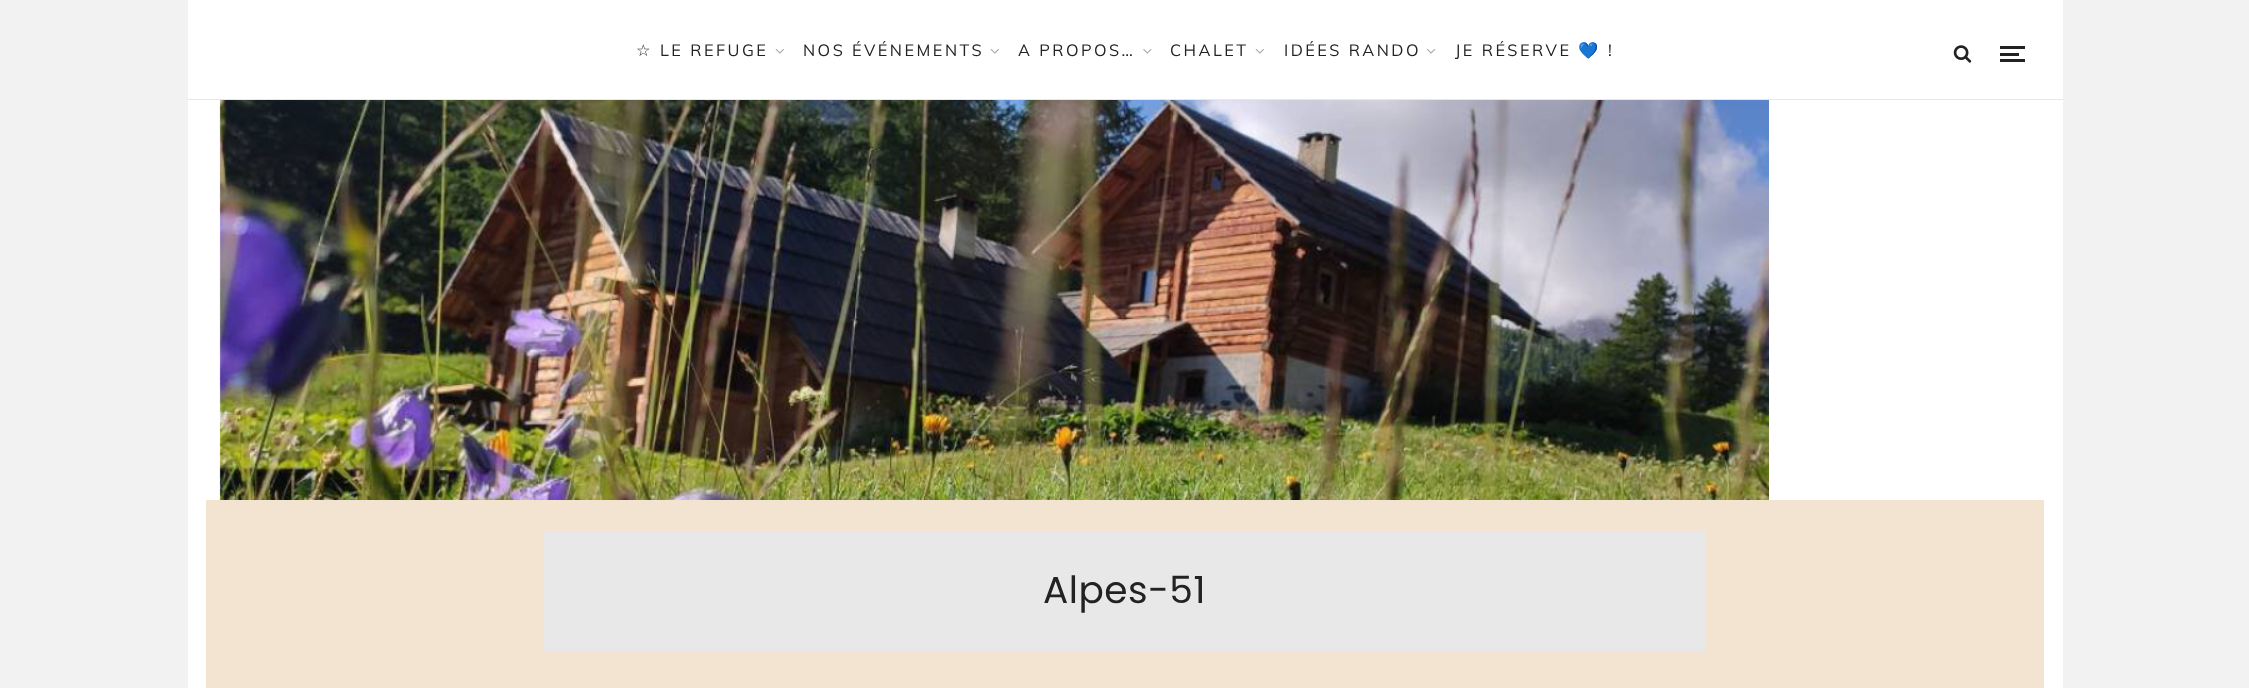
<?xml version="1.0" encoding="UTF-8"?>
<svg xmlns="http://www.w3.org/2000/svg" width="2249" height="688">
    <rect width="100%" height="100%" fill="#F2F2F2"/>
    <rect x="188" y="100" width="1875" height="588" fill="#FFFFFF"/>
    <rect x="206" y="500" width="1838" height="188" fill="#F3E4D1"/>
    <rect x="188" y="0" width="1875" height="99" fill="#FFFFFF"/>
    <rect x="188" y="99" width="1875" height="1" fill="#E8E8E8"/>
    <text x="636" y="56" font-family="DejaVu Sans" font-size="16.25" letter-spacing="2.5" fill="#222222">☆</text>
    <text x="660" y="56" font-family="Muli" font-size="16.25" letter-spacing="2.5" fill="#222222">LE REFUGE</text>
    <image x="775" y="49" width="9" height="5" href="img_01.png"/>
    <text x="803" y="56" font-family="Muli" font-size="16.25" letter-spacing="2.5" fill="#222222">NOS ÉVÉNEMENTS</text>
    <image x="990" y="49" width="9" height="5" href="img_01.png"/>
    <text x="1018" y="56" font-family="Muli" font-size="16.25" letter-spacing="2.5" fill="#222222">A PROPOS…</text>
    <image x="1143" y="49" width="9" height="5" href="img_02.png"/>
    <text x="1170" y="56" font-family="Muli" font-size="16.25" letter-spacing="2.5" fill="#222222">CHALET</text>
    <image x="1255" y="49" width="9" height="5" href="img_01.png"/>
    <text x="1284" y="56" font-family="Muli" font-size="16.25" letter-spacing="2.5" fill="#222222">IDÉES RANDO</text>
    <image x="1427" y="49" width="9" height="5" href="img_03.png"/>
    <text x="1455" y="56" font-family="Muli" font-size="16.25" letter-spacing="2.5" fill="#222222">JE RÉSERVE</text>
    <text x="1578" y="56" font-family="Noto Color Emoji" font-size="16.25" letter-spacing="2.5" fill="#222222">💙</text>
    <text x="1608" y="56" font-family="Muli" font-size="16.25" letter-spacing="2.5" fill="#222222">!</text>
    <image x="1953" y="45" width="19" height="18" href="img_04.png"/>
    <rect x="2000" y="46" width="25" height="3" fill="#222222"/>
    <rect x="2000" y="53" width="19" height="3" fill="#222222"/>
    <rect x="2000" y="59" width="25" height="3" fill="#222222"/>
    <rect x="544" y="531" width="1162" height="120" fill="#E8E8E8"/>
    <text x="1043" y="603" font-family="Poppins" font-size="37.5" letter-spacing="0.5" fill="#222222">Alpes-51</text>
    <image x="219" y="100" width="1550" height="400" href="img_05.png"/>
</svg>
